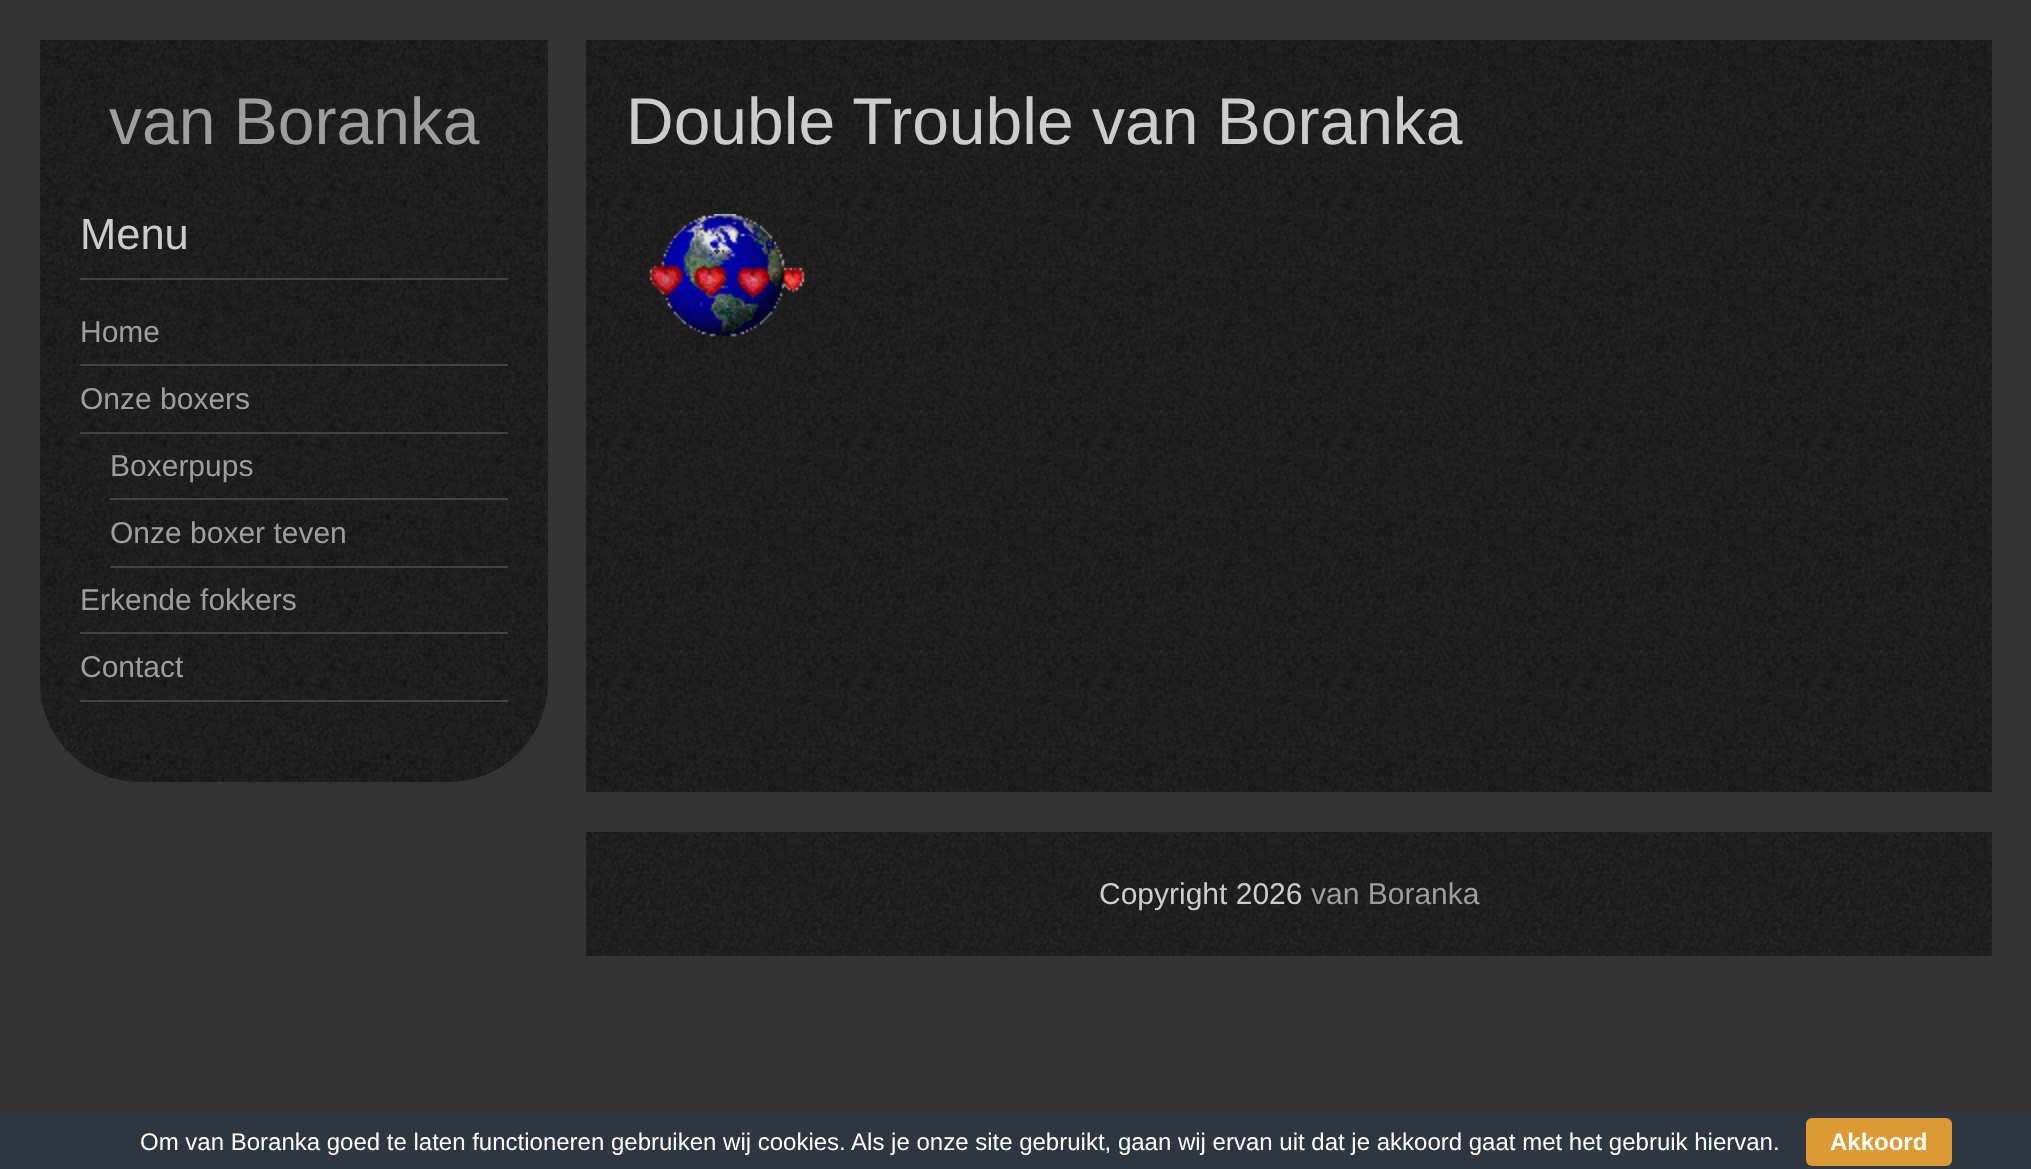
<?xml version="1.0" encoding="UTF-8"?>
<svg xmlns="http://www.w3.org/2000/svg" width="2031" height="1169">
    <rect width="100%" height="100%" fill="#333333"/>
    <image x="40" y="40" width="508" height="742" href="img_01.png"/>
    <text x="109" y="144" font-family="Liberation Sans" font-size="66" fill="#9E9E9E">van Boranka</text>
    <rect x="80" y="278" width="428" height="2" fill="#424242"/>
    <text x="80" y="249" font-family="Liberation Sans" font-size="43.5" fill="#CCCCCC">Menu</text>
    <rect x="80" y="364" width="428" height="2" fill="#424242"/>
    <text x="80" y="342" font-family="Liberation Sans" font-size="30" fill="#9E9E9E">Home</text>
    <rect x="80" y="432" width="428" height="2" fill="#424242"/>
    <text x="80" y="409" font-family="Liberation Sans" font-size="30" fill="#9E9E9E">Onze boxers</text>
    <rect x="110" y="498" width="398" height="2" fill="#424242"/>
    <text x="110" y="476" font-family="Liberation Sans" font-size="30" fill="#9E9E9E">Boxerpups</text>
    <rect x="110" y="566" width="398" height="2" fill="#424242"/>
    <text x="110" y="543" font-family="Liberation Sans" font-size="30" fill="#9E9E9E">Onze boxer teven</text>
    <rect x="80" y="632" width="428" height="2" fill="#424242"/>
    <text x="80" y="610" font-family="Liberation Sans" font-size="30" fill="#9E9E9E">Erkende fokkers</text>
    <rect x="80" y="700" width="428" height="2" fill="#424242"/>
    <text x="80" y="677" font-family="Liberation Sans" font-size="30" fill="#9E9E9E">Contact</text>
    <image x="586" y="40" width="1406" height="752" href="img_02.png"/>
    <text x="626" y="144" font-family="Liberation Sans" font-size="66" fill="#CCCCCC">Double Trouble van Boranka</text>
    <image x="649" y="214" width="156" height="123" href="img_03.png"/>
    <image x="586" y="832" width="1406" height="124" href="img_04.png"/>
    <text x="1099" y="904" font-family="Liberation Sans" font-size="30" fill="#CCCCCC">Copyright 2026</text>
    <text x="1311" y="904" font-family="Liberation Sans" font-size="30" fill="#9E9E9E">van Boranka</text>
    <rect x="0" y="1112" width="2031" height="57" fill="#2E363F"/>
    <text x="140" y="1150" font-family="Liberation Sans" font-size="24" fill="#FFFFFF">Om van Boranka goed te laten functioneren gebruiken wij cookies. Als je onze site gebruikt, gaan wij ervan uit dat je akkoord gaat met het gebruik hiervan.</text>
    <rect x="1806" y="1118" width="146" height="48" rx="6" fill="#DD9933"/>
    <text x="1830" y="1150" font-family="Liberation Sans" font-size="24" font-weight="700" fill="#FFFFFF">Akkoord</text>
</svg>
